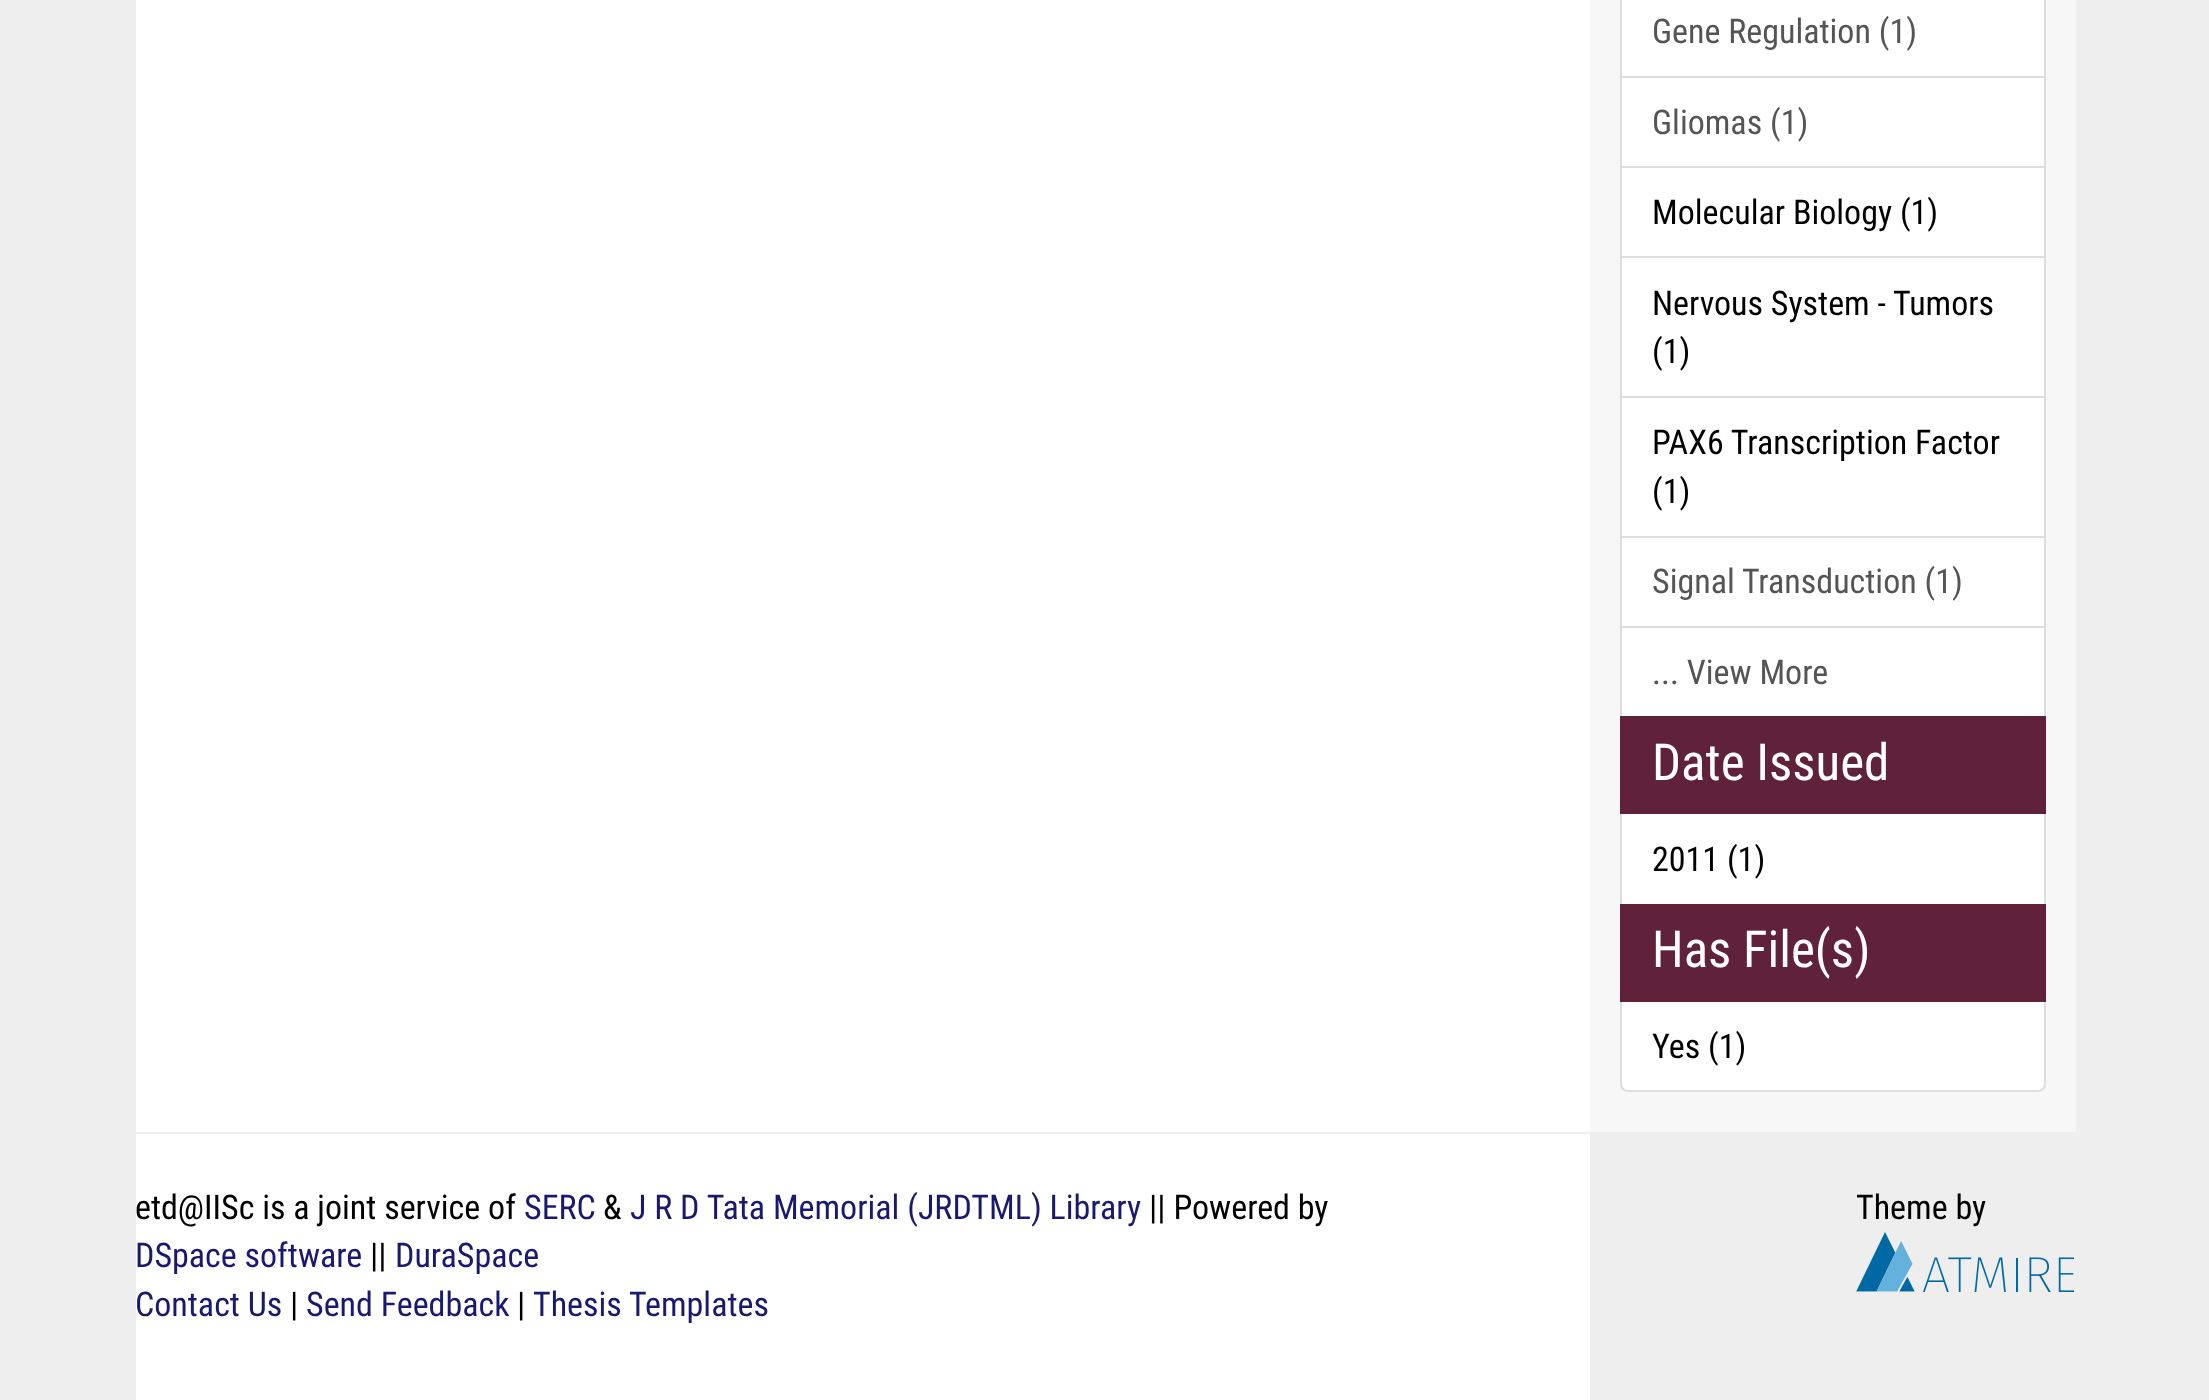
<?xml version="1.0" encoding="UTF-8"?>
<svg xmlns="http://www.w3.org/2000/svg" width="2209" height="1400">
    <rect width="100%" height="100%" fill="#EEEEEE"/>
    <rect x="1590" y="0" width="486" height="1132" fill="#F7F7F7"/>
    <rect x="136" y="0" width="1454" height="1400" fill="#FFFFFF"/>
    <rect x="1621" y="-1" width="424" height="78" fill="#FFFFFF" stroke="#DDDDDD" stroke-width="2"/>
    <text x="1652" y="43" font-family="Roboto Condensed" font-size="34" fill="#555555">Gene Regulation (1)</text>
    <rect x="1621" y="77" width="424" height="90" fill="#FFFFFF" stroke="#DDDDDD" stroke-width="2"/>
    <text x="1652" y="134" font-family="Roboto Condensed" font-size="34" fill="#555555">Gliomas (1)</text>
    <rect x="1621" y="167" width="424" height="90" fill="#FFFFFF" stroke="#DDDDDD" stroke-width="2"/>
    <text x="1652" y="224" font-family="Roboto Condensed" font-size="34" fill="#000000">Molecular Biology (1)</text>
    <rect x="1621" y="257" width="424" height="140" fill="#FFFFFF" stroke="#DDDDDD" stroke-width="2"/>
    <text font-family="Roboto Condensed" font-size="34" fill="#000000">
        <tspan x="1652" y="315">Nervous System - Tumors</tspan>
        <tspan x="1652" y="363">(1)</tspan>
    </text>
    <rect x="1621" y="397" width="424" height="140" fill="#FFFFFF" stroke="#DDDDDD" stroke-width="2"/>
    <text font-family="Roboto Condensed" font-size="34" fill="#000000">
        <tspan x="1652" y="454">PAX6 Transcription Factor</tspan>
        <tspan x="1652" y="503">(1)</tspan>
    </text>
    <rect x="1621" y="537" width="424" height="90" fill="#FFFFFF" stroke="#DDDDDD" stroke-width="2"/>
    <text x="1652" y="593" font-family="Roboto Condensed" font-size="34" fill="#555555">Signal Transduction (1)</text>
    <rect x="1621" y="627" width="424" height="90" fill="#FFFFFF" stroke="#DDDDDD" stroke-width="2"/>
    <text x="1652" y="684" font-family="Roboto Condensed" font-size="34" fill="#555555">... View More</text>
    <rect x="1621" y="813" width="424" height="92" fill="#FFFFFF" stroke="#DDDDDD" stroke-width="2"/>
    <rect x="1620" y="716" width="426" height="98" fill="#60223B"/>
    <text x="1652" y="780" font-family="Roboto Condensed" font-size="51" fill="#FFFFFF">Date Issued</text>
    <text x="1652" y="871" font-family="Roboto Condensed" font-size="34" fill="#000000">2011 (1)</text>
    <path d="M 1621 1001 H 2045 V 1084 C 2045 1088 2042 1091 2038 1091 H 1628 C 1624 1091 1621 1088 1621 1084 Z" fill="#FFFFFF" stroke="#DDDDDD" stroke-width="2"/>
    <rect x="1620" y="904" width="426" height="98" fill="#60223B"/>
    <text x="1652" y="967" font-family="Roboto Condensed" font-size="51" fill="#FFFFFF">Has File(s)</text>
    <text x="1652" y="1058" font-family="Roboto Condensed" font-size="34" fill="#000000">Yes (1)</text>
    <rect x="136" y="1132" width="1454" height="2" fill="#EEEEEE"/>
    <text x="135" y="1219" font-family="Roboto Condensed" font-size="34" fill="#000000">etd@IISc is a joint service of</text>
    <text x="524" y="1219" font-family="Roboto Condensed" font-size="34" fill="#191970">SERC</text>
    <text x="603" y="1219" font-family="Roboto Condensed" font-size="34" fill="#000000">&amp;</text>
    <text x="630" y="1219" font-family="Roboto Condensed" font-size="34" fill="#191970">J R D Tata Memorial (JRDTML) Library</text>
    <text x="1149" y="1219" font-family="Roboto Condensed" font-size="34" fill="#000000">|| Powered by</text>
    <text x="135" y="1267" font-family="Roboto Condensed" font-size="34" fill="#191970">DSpace software</text>
    <text x="370" y="1267" font-family="Roboto Condensed" font-size="34" fill="#000000">||</text>
    <text x="395" y="1267" font-family="Roboto Condensed" font-size="34" fill="#191970">DuraSpace</text>
    <text x="135" y="1316" font-family="Roboto Condensed" font-size="34" fill="#191970">Contact Us</text>
    <text x="290" y="1316" font-family="Roboto Condensed" font-size="34" fill="#000000">|</text>
    <text x="306" y="1316" font-family="Roboto Condensed" font-size="34" fill="#191970">Send Feedback</text>
    <text x="517" y="1316" font-family="Roboto Condensed" font-size="34" fill="#000000">|</text>
    <text x="533" y="1316" font-family="Roboto Condensed" font-size="34" fill="#191970">Thesis Templates</text>
    <text x="1856" y="1219" font-family="Roboto Condensed" font-size="34" fill="#000000">Theme by</text>
    <image x="1856" y="1232" width="218" height="60" href="img_01.png"/>
</svg>
